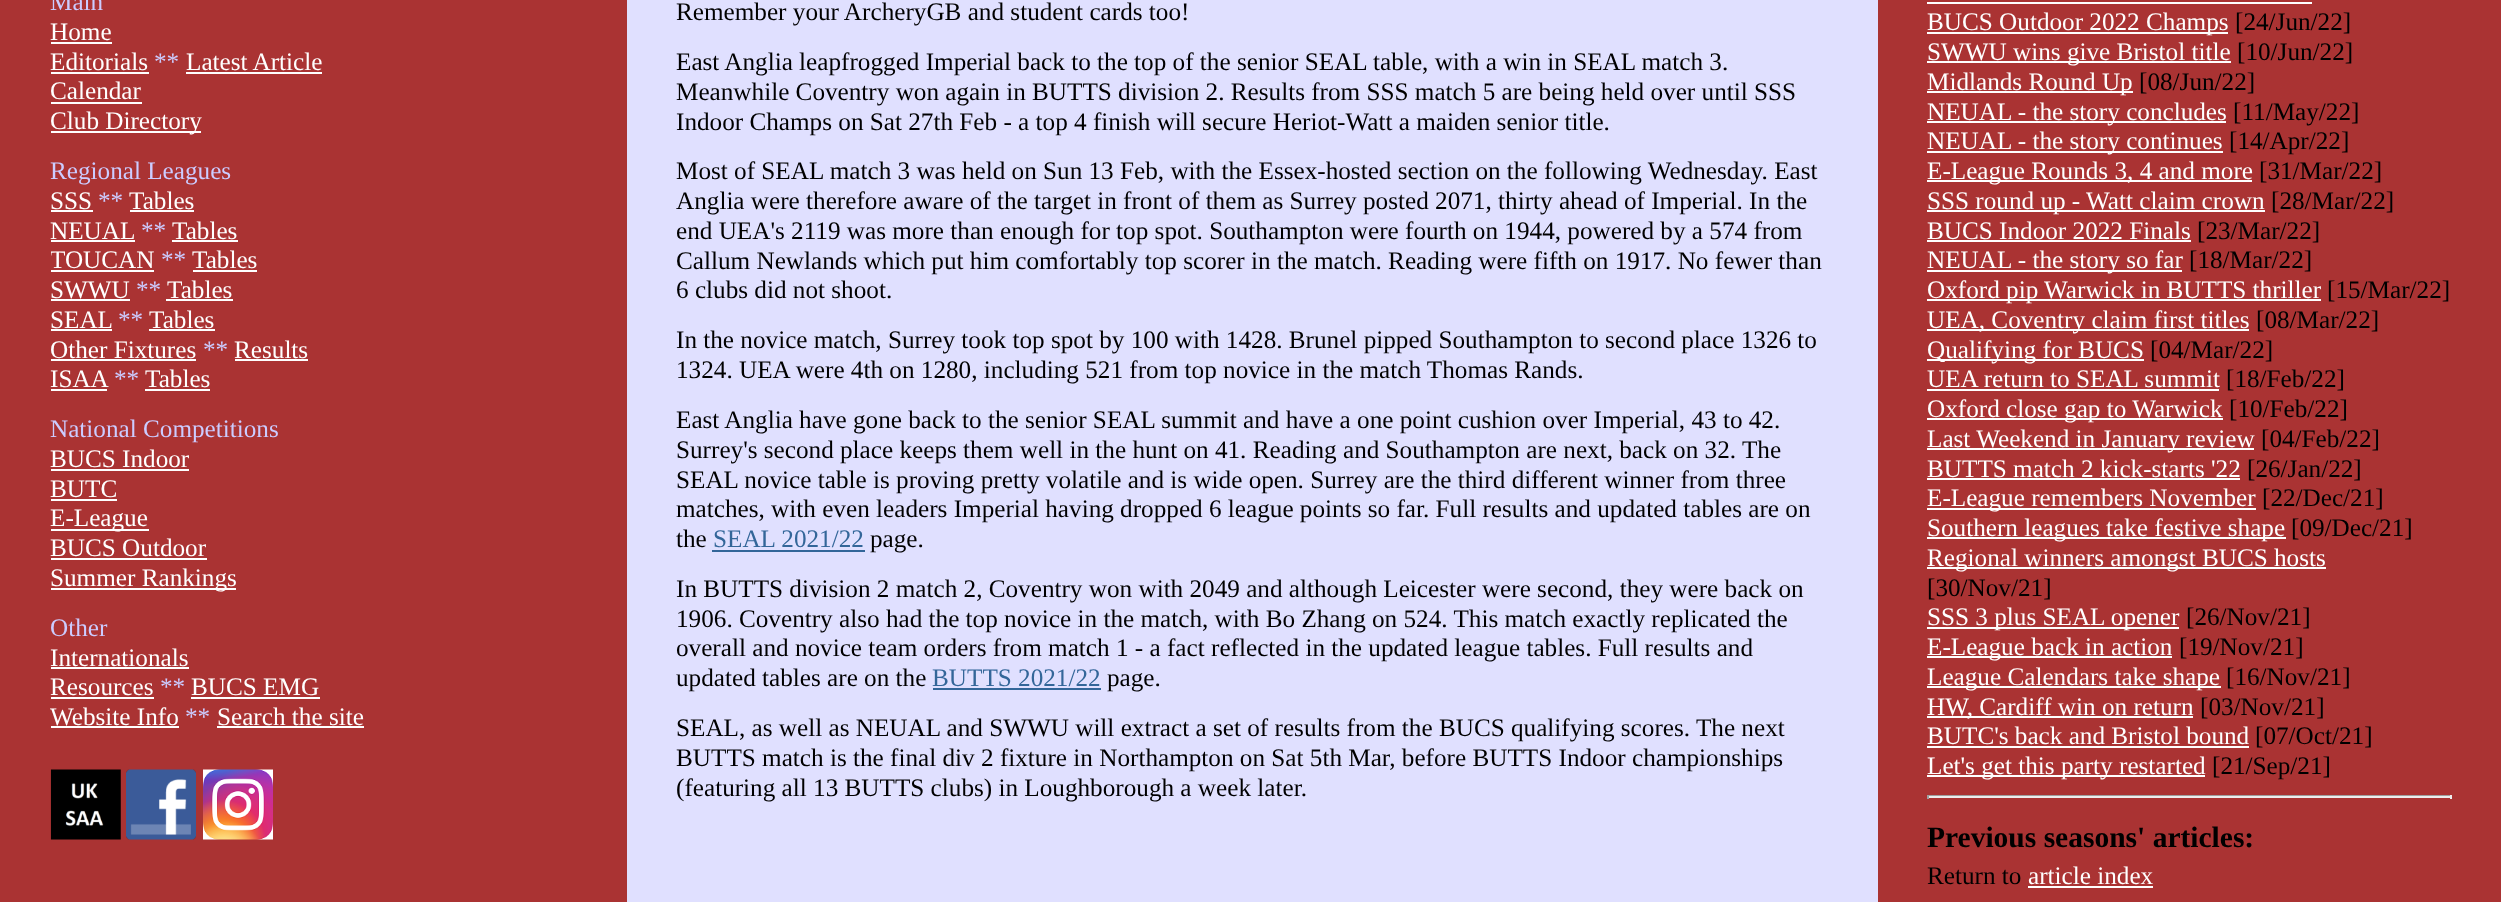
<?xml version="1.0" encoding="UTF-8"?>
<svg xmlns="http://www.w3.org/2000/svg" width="2501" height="902">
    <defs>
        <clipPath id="clip1"><rect x="51" y="0" width="525" height="901"/></clipPath>
    </defs>
    <rect width="100%" height="100%" fill="#AA3333"/>
    <rect x="627" y="0" width="1251" height="902" fill="#E0E0FF"/>
    <text x="50" y="10" font-family="Liberation Serif" font-size="25.2" fill="#CCCCFF">Main</text>
    <text x="50" y="40" font-family="Liberation Serif" font-size="25.2" fill="#FFFFFF">Home</text>
    <rect x="51" y="42" width="61" height="2" fill="#FFFFFF"/>
    <text x="50" y="70" font-family="Liberation Serif" font-size="25.2" fill="#FFFFFF">Editorials</text>
    <rect x="51" y="72" width="98" height="2" fill="#FFFFFF"/>
    <text x="154" y="70" font-family="Liberation Serif" font-size="25.2" fill="#CCCCFF">**</text>
    <text x="186" y="70" font-family="Liberation Serif" font-size="25.2" fill="#FFFFFF">Latest Article</text>
    <rect x="186" y="72" width="136" height="2" fill="#FFFFFF"/>
    <text x="50" y="99" font-family="Liberation Serif" font-size="25.2" fill="#FFFFFF">Calendar</text>
    <rect x="51" y="102" width="91" height="2" fill="#FFFFFF"/>
    <rect x="51" y="131" width="150" height="2" fill="#FFFFFF"/>
    <text x="50" y="129" font-family="Liberation Serif" font-size="25.2" fill="#FFFFFF">Club Directory</text>
    <text x="50" y="179" font-family="Liberation Serif" font-size="25.2" fill="#CCCCFF">Regional Leagues</text>
    <text x="50" y="209" font-family="Liberation Serif" font-size="25.2" fill="#FFFFFF">SSS</text>
    <rect x="51" y="210" width="42" height="2" fill="#FFFFFF"/>
    <text x="98" y="209" font-family="Liberation Serif" font-size="25.2" fill="#CCCCFF">**</text>
    <text x="129" y="209" font-family="Liberation Serif" font-size="25.2" fill="#FFFFFF">Tables</text>
    <rect x="130" y="210" width="64" height="2" fill="#FFFFFF"/>
    <text x="50" y="239" font-family="Liberation Serif" font-size="25.2" fill="#FFFFFF">NEUAL</text>
    <rect x="51" y="240" width="84" height="2" fill="#FFFFFF"/>
    <text x="141" y="239" font-family="Liberation Serif" font-size="25.2" fill="#CCCCFF">**</text>
    <text x="172" y="239" font-family="Liberation Serif" font-size="25.2" fill="#FFFFFF">Tables</text>
    <rect x="172" y="240" width="66" height="2" fill="#FFFFFF"/>
    <g clip-path="url(#clip1)">
        <text x="50" y="268" font-family="Liberation Serif" font-size="25.2" fill="#FFFFFF">TOUCAN</text>
    </g>
    <rect x="51" y="270" width="103" height="2" fill="#FFFFFF"/>
    <text x="161" y="268" font-family="Liberation Serif" font-size="25.2" fill="#CCCCFF">**</text>
    <text x="192" y="268" font-family="Liberation Serif" font-size="25.2" fill="#FFFFFF">Tables</text>
    <rect x="193" y="270" width="64" height="2" fill="#FFFFFF"/>
    <text x="50" y="298" font-family="Liberation Serif" font-size="25.2" fill="#FFFFFF">SWWU</text>
    <rect x="51" y="299" width="79" height="2" fill="#FFFFFF"/>
    <text x="136" y="298" font-family="Liberation Serif" font-size="25.2" fill="#CCCCFF">**</text>
    <text x="167" y="298" font-family="Liberation Serif" font-size="25.2" fill="#FFFFFF">Tables</text>
    <rect x="166" y="299" width="67" height="2" fill="#FFFFFF"/>
    <text x="50" y="328" font-family="Liberation Serif" font-size="25.2" fill="#FFFFFF">SEAL</text>
    <rect x="51" y="329" width="61" height="2" fill="#FFFFFF"/>
    <text x="118" y="328" font-family="Liberation Serif" font-size="25.2" fill="#CCCCFF">**</text>
    <text x="149" y="328" font-family="Liberation Serif" font-size="25.2" fill="#FFFFFF">Tables</text>
    <rect x="149" y="329" width="66" height="2" fill="#FFFFFF"/>
    <text x="50" y="358" font-family="Liberation Serif" font-size="25.2" fill="#FFFFFF">Other Fixtures</text>
    <rect x="51" y="359" width="145" height="2" fill="#FFFFFF"/>
    <text x="203" y="358" font-family="Liberation Serif" font-size="25.2" fill="#CCCCFF">**</text>
    <text x="234" y="358" font-family="Liberation Serif" font-size="25.2" fill="#FFFFFF">Results</text>
    <rect x="235" y="359" width="73" height="2" fill="#FFFFFF"/>
    <text x="50" y="387" font-family="Liberation Serif" font-size="25.2" fill="#FFFFFF">ISAA</text>
    <rect x="51" y="389" width="56" height="2" fill="#FFFFFF"/>
    <text x="114" y="387" font-family="Liberation Serif" font-size="25.2" fill="#CCCCFF">**</text>
    <text x="145" y="387" font-family="Liberation Serif" font-size="25.2" fill="#FFFFFF">Tables</text>
    <rect x="145" y="389" width="65" height="2" fill="#FFFFFF"/>
    <text x="50" y="437" font-family="Liberation Serif" font-size="25.2" fill="#CCCCFF">National Competitions</text>
    <text x="50" y="467" font-family="Liberation Serif" font-size="25.2" fill="#FFFFFF">BUCS Indoor</text>
    <rect x="51" y="469" width="138" height="2" fill="#FFFFFF"/>
    <text x="50" y="497" font-family="Liberation Serif" font-size="25.2" fill="#FFFFFF">BUTC</text>
    <rect x="51" y="499" width="66" height="2" fill="#FFFFFF"/>
    <rect x="51" y="529" width="98" height="2" fill="#FFFFFF"/>
    <text font-family="Liberation Serif" font-size="25.2" fill="#FFFFFF">
        <tspan x="50" y="526">E-League</tspan>
        <tspan x="50" y="556">BUCS Outdoor</tspan>
    </text>
    <rect x="51" y="558" width="156" height="2" fill="#FFFFFF"/>
    <rect x="51" y="588" width="185" height="2" fill="#FFFFFF"/>
    <text x="50" y="586" font-family="Liberation Serif" font-size="25.2" fill="#FFFFFF">Summer Rankings</text>
    <text x="50" y="636" font-family="Liberation Serif" font-size="25.2" fill="#CCCCFF">Other</text>
    <text x="50" y="666" font-family="Liberation Serif" font-size="25.2" fill="#FFFFFF">Internationals</text>
    <rect x="51" y="667" width="138" height="2" fill="#FFFFFF"/>
    <text x="50" y="695" font-family="Liberation Serif" font-size="25.2" fill="#FFFFFF">Resources</text>
    <rect x="51" y="697" width="103" height="2" fill="#FFFFFF"/>
    <text x="160" y="695" font-family="Liberation Serif" font-size="25.2" fill="#CCCCFF">**</text>
    <text x="191" y="695" font-family="Liberation Serif" font-size="25.2" fill="#FFFFFF">BUCS EMG</text>
    <rect x="191" y="697" width="129" height="2" fill="#FFFFFF"/>
    <text x="50" y="725" font-family="Liberation Serif" font-size="25.2" fill="#FFFFFF">Website Info</text>
    <rect x="51" y="726" width="128" height="2" fill="#FFFFFF"/>
    <text x="185" y="725" font-family="Liberation Serif" font-size="25.2" fill="#CCCCFF">**</text>
    <text x="217" y="725" font-family="Liberation Serif" font-size="25.2" fill="#FFFFFF">Search the site</text>
    <rect x="217" y="726" width="147" height="2" fill="#FFFFFF"/>
    <image x="50" y="769" width="71" height="71" href="img_01.png"/>
    <image x="126" y="769" width="70" height="71" href="img_02.png"/>
    <image x="203" y="769" width="70" height="71" href="img_03.png"/>
    <text font-family="Liberation Serif" font-size="25.2" fill="#000000">
        <tspan x="676" y="20">Remember your ArcheryGB and student cards too!</tspan>
        <tspan x="676" y="70">East Anglia leapfrogged Imperial back to the top of the senior SEAL table, with a win in SEAL match 3.</tspan>
        <tspan x="676" y="100">Meanwhile Coventry won again in BUTTS division 2. Results from SSS match 5 are being held over until SSS</tspan>
        <tspan x="676" y="130">Indoor Champs on Sat 27th Feb - a top 4 finish will secure Heriot-Watt a maiden senior title.</tspan>
        <tspan x="676" y="179">Most of SEAL match 3 was held on Sun 13 Feb, with the Essex-hosted section on the following Wednesday. East</tspan>
        <tspan x="676" y="209">Anglia were therefore aware of the target in front of them as Surrey posted 2071, thirty ahead of Imperial. In the</tspan>
        <tspan x="676" y="239">end UEA's 2119 was more than enough for top spot. Southampton were fourth on 1944, powered by a 574 from</tspan>
        <tspan x="676" y="269">Callum Newlands which put him comfortably top scorer in the match. Reading were fifth on 1917. No fewer than</tspan>
        <tspan x="676" y="298">6 clubs did not shoot.</tspan>
        <tspan x="676" y="348">In the novice match, Surrey took top spot by 100 with 1428. Brunel pipped Southampton to second place 1326 to</tspan>
        <tspan x="676" y="378">1324. UEA were 4th on 1280, including 521 from top novice in the match Thomas Rands.</tspan>
        <tspan x="676" y="428">East Anglia have gone back to the senior SEAL summit and have a one point cushion over Imperial, 43 to 42.</tspan>
        <tspan x="676" y="458">Surrey's second place keeps them well in the hunt on 41. Reading and Southampton are next, back on 32. The</tspan>
        <tspan x="676" y="488">SEAL novice table is proving pretty volatile and is wide open. Surrey are the third different winner from three</tspan>
        <tspan x="676" y="517">matches, with even leaders Imperial having dropped 6 league points so far. Full results and updated tables are on</tspan>
        <tspan x="676" y="547">the</tspan>
    </text>
    <text x="713" y="547" font-family="Liberation Serif" font-size="25.2" fill="#336699">SEAL 2021/22</text>
    <rect x="712" y="550" width="153" height="2" fill="#336699"/>
    <text x="870" y="547" font-family="Liberation Serif" font-size="25.2" fill="#000000">page.</text>
    <text font-family="Liberation Serif" font-size="25.2" fill="#000000">
        <tspan x="676" y="597">In BUTTS division 2 match 2, Coventry won with 2049 and although Leicester were second, they were back on</tspan>
        <tspan x="676" y="627">1906. Coventry also had the top novice in the match, with Bo Zhang on 524. This match exactly replicated the</tspan>
        <tspan x="676" y="656">overall and novice team orders from match 1 - a fact reflected in the updated league tables. Full results and</tspan>
        <tspan x="676" y="686">updated tables are on the</tspan>
    </text>
    <text x="932" y="686" font-family="Liberation Serif" font-size="25.2" fill="#336699">BUTTS 2021/22</text>
    <rect x="933" y="688" width="168" height="2" fill="#336699"/>
    <text x="1107" y="686" font-family="Liberation Serif" font-size="25.2" fill="#000000">page.</text>
    <text font-family="Liberation Serif" font-size="25.2" fill="#000000">
        <tspan x="676" y="736">SEAL, as well as NEUAL and SWWU will extract a set of results from the BUCS qualifying scores. The next</tspan>
        <tspan x="676" y="766">BUTTS match is the final div 2 fixture in Northampton on Sat 5th Mar, before BUTTS Indoor championships</tspan>
        <tspan x="676" y="796">(featuring all 13 BUTTS clubs) in Loughborough a week later.</tspan>
    </text>
    <rect x="1927" y="2" width="385" height="2" fill="#FFFFFF"/>
    <rect x="1927" y="32" width="301" height="2" fill="#FFFFFF"/>
    <text x="1927" y="30" font-family="Liberation Serif" font-size="25.2" fill="#FFFFFF">BUCS Outdoor 2022 Champs</text>
    <text x="2235" y="30" font-family="Liberation Serif" font-size="25.2" fill="#000000">[24/Jun/22]</text>
    <rect x="1927" y="61" width="304" height="2" fill="#FFFFFF"/>
    <text x="1927" y="60" font-family="Liberation Serif" font-size="25.2" fill="#FFFFFF">SWWU wins give Bristol title</text>
    <text x="2237" y="60" font-family="Liberation Serif" font-size="25.2" fill="#000000">[10/Jun/22]</text>
    <rect x="1927" y="91" width="206" height="2" fill="#FFFFFF"/>
    <text x="1927" y="90" font-family="Liberation Serif" font-size="25.2" fill="#FFFFFF">Midlands Round Up</text>
    <text x="2139" y="90" font-family="Liberation Serif" font-size="25.2" fill="#000000">[08/Jun/22]</text>
    <rect x="1927" y="121" width="299" height="2" fill="#FFFFFF"/>
    <text x="1927" y="120" font-family="Liberation Serif" font-size="25.2" fill="#FFFFFF">NEUAL - the story concludes</text>
    <text x="2233" y="120" font-family="Liberation Serif" font-size="25.2" fill="#000000">[11/May/22]</text>
    <rect x="1927" y="151" width="296" height="2" fill="#FFFFFF"/>
    <text x="1927" y="149" font-family="Liberation Serif" font-size="25.2" fill="#FFFFFF">NEUAL - the story continues</text>
    <text x="2229" y="149" font-family="Liberation Serif" font-size="25.2" fill="#000000">[14/Apr/22]</text>
    <rect x="1927" y="180" width="325" height="2" fill="#FFFFFF"/>
    <text x="1927" y="179" font-family="Liberation Serif" font-size="25.2" fill="#FFFFFF">E-League Rounds 3, 4 and more</text>
    <text x="2259" y="179" font-family="Liberation Serif" font-size="25.2" fill="#000000">[31/Mar/22]</text>
    <rect x="1927" y="210" width="338" height="2" fill="#FFFFFF"/>
    <text x="1927" y="209" font-family="Liberation Serif" font-size="25.2" fill="#FFFFFF">SSS round up - Watt claim crown</text>
    <text x="2271" y="209" font-family="Liberation Serif" font-size="25.2" fill="#000000">[28/Mar/22]</text>
    <text x="1927" y="239" font-family="Liberation Serif" font-size="25.2" fill="#FFFFFF">BUCS Indoor 2022 Finals</text>
    <rect x="1927" y="240" width="264" height="2" fill="#FFFFFF"/>
    <text x="2197" y="239" font-family="Liberation Serif" font-size="25.2" fill="#000000">[23/Mar/22]</text>
    <rect x="1927" y="270" width="255" height="2" fill="#FFFFFF"/>
    <text x="1927" y="268" font-family="Liberation Serif" font-size="25.2" fill="#FFFFFF">NEUAL - the story so far</text>
    <text x="2189" y="268" font-family="Liberation Serif" font-size="25.2" fill="#000000">[18/Mar/22]</text>
    <rect x="1927" y="299" width="394" height="2" fill="#FFFFFF"/>
    <text x="1927" y="298" font-family="Liberation Serif" font-size="25.2" fill="#FFFFFF">Oxford pip Warwick in BUTTS thriller</text>
    <text x="2327" y="298" font-family="Liberation Serif" font-size="25.2" fill="#000000">[15/Mar/22]</text>
    <rect x="1927" y="329" width="322" height="2" fill="#FFFFFF"/>
    <text x="1927" y="328" font-family="Liberation Serif" font-size="25.2" fill="#FFFFFF">UEA, Coventry claim first titles</text>
    <text x="2256" y="328" font-family="Liberation Serif" font-size="25.2" fill="#000000">[08/Mar/22]</text>
    <rect x="1927" y="359" width="217" height="2" fill="#FFFFFF"/>
    <text x="1927" y="358" font-family="Liberation Serif" font-size="25.2" fill="#FFFFFF">Qualifying for BUCS</text>
    <text x="2150" y="358" font-family="Liberation Serif" font-size="25.2" fill="#000000">[04/Mar/22]</text>
    <text x="1927" y="387" font-family="Liberation Serif" font-size="25.2" fill="#FFFFFF">UEA return to SEAL summit</text>
    <rect x="1927" y="389" width="292" height="2" fill="#FFFFFF"/>
    <text x="2226" y="387" font-family="Liberation Serif" font-size="25.2" fill="#000000">[18/Feb/22]</text>
    <rect x="1927" y="418" width="296" height="2" fill="#FFFFFF"/>
    <text x="1927" y="417" font-family="Liberation Serif" font-size="25.2" fill="#FFFFFF">Oxford close gap to Warwick</text>
    <text x="2229" y="417" font-family="Liberation Serif" font-size="25.2" fill="#000000">[10/Feb/22]</text>
    <rect x="1927" y="448" width="327" height="2" fill="#FFFFFF"/>
    <text x="1927" y="447" font-family="Liberation Serif" font-size="25.2" fill="#FFFFFF">Last Weekend in January review</text>
    <text x="2261" y="447" font-family="Liberation Serif" font-size="25.2" fill="#000000">[04/Feb/22]</text>
    <text x="1927" y="477" font-family="Liberation Serif" font-size="25.2" fill="#FFFFFF">BUTTS match 2 kick-starts '22</text>
    <rect x="1927" y="478" width="313" height="2" fill="#FFFFFF"/>
    <text x="2247" y="477" font-family="Liberation Serif" font-size="25.2" fill="#000000">[26/Jan/22]</text>
    <rect x="1927" y="508" width="329" height="2" fill="#FFFFFF"/>
    <text x="1927" y="506" font-family="Liberation Serif" font-size="25.2" fill="#FFFFFF">E-League remembers November</text>
    <text x="2262" y="506" font-family="Liberation Serif" font-size="25.2" fill="#000000">[22/Dec/21]</text>
    <rect x="1927" y="537" width="359" height="2" fill="#FFFFFF"/>
    <text x="1927" y="536" font-family="Liberation Serif" font-size="25.2" fill="#FFFFFF">Southern leagues take festive shape</text>
    <text x="2291" y="536" font-family="Liberation Serif" font-size="25.2" fill="#000000">[09/Dec/21]</text>
    <rect x="1927" y="567" width="399" height="2" fill="#FFFFFF"/>
    <text x="1927" y="566" font-family="Liberation Serif" font-size="25.2" fill="#FFFFFF">Regional winners amongst BUCS hosts</text>
    <text x="1927" y="596" font-family="Liberation Serif" font-size="25.2" fill="#000000">[30/Nov/21]</text>
    <rect x="1927" y="627" width="252" height="2" fill="#FFFFFF"/>
    <text x="1927" y="625" font-family="Liberation Serif" font-size="25.2" fill="#FFFFFF">SSS 3 plus SEAL opener</text>
    <text x="2186" y="625" font-family="Liberation Serif" font-size="25.2" fill="#000000">[26/Nov/21]</text>
    <rect x="1927" y="656" width="245" height="2" fill="#FFFFFF"/>
    <text x="1927" y="655" font-family="Liberation Serif" font-size="25.2" fill="#FFFFFF">E-League back in action</text>
    <text x="2179" y="655" font-family="Liberation Serif" font-size="25.2" fill="#000000">[19/Nov/21]</text>
    <rect x="1927" y="686" width="294" height="2" fill="#FFFFFF"/>
    <text x="1927" y="685" font-family="Liberation Serif" font-size="25.2" fill="#FFFFFF">League Calendars take shape</text>
    <text x="2226" y="685" font-family="Liberation Serif" font-size="25.2" fill="#000000">[16/Nov/21]</text>
    <rect x="1927" y="716" width="266" height="2" fill="#FFFFFF"/>
    <text x="1927" y="715" font-family="Liberation Serif" font-size="25.2" fill="#FFFFFF">HW, Cardiff win on return</text>
    <text x="2200" y="715" font-family="Liberation Serif" font-size="25.2" fill="#000000">[03/Nov/21]</text>
    <text x="1927" y="744" font-family="Liberation Serif" font-size="25.2" fill="#FFFFFF">BUTC's back and Bristol bound</text>
    <rect x="1927" y="746" width="322" height="2" fill="#FFFFFF"/>
    <text x="2255" y="744" font-family="Liberation Serif" font-size="25.2" fill="#000000">[07/Oct/21]</text>
    <rect x="1927" y="775" width="278" height="2" fill="#FFFFFF"/>
    <text x="1927" y="774" font-family="Liberation Serif" font-size="25.2" fill="#FFFFFF">Let's get this party restarted</text>
    <text x="2212" y="774" font-family="Liberation Serif" font-size="25.2" fill="#000000">[21/Sep/21]</text>
    <rect x="1927" y="795" width="525" height="1" fill="#9F9F9F"/>
    <rect x="2450" y="795" width="2" height="4" fill="#EEEEEE"/>
    <rect x="1927" y="796" width="525" height="2" fill="#EEEEEE"/>
    <rect x="1927" y="795" width="2" height="4" fill="#9F9F9F"/>
    <text x="1927" y="847" font-family="Liberation Serif" font-size="29.5" font-weight="700" fill="#000000">Previous seasons' articles:</text>
    <text x="1927" y="884" font-family="Liberation Serif" font-size="25.2" fill="#000000">Return to</text>
    <text x="2028" y="884" font-family="Liberation Serif" font-size="25.2" fill="#FFFFFF">article index</text>
    <rect x="2028" y="886" width="125" height="2" fill="#FFFFFF"/>
</svg>
